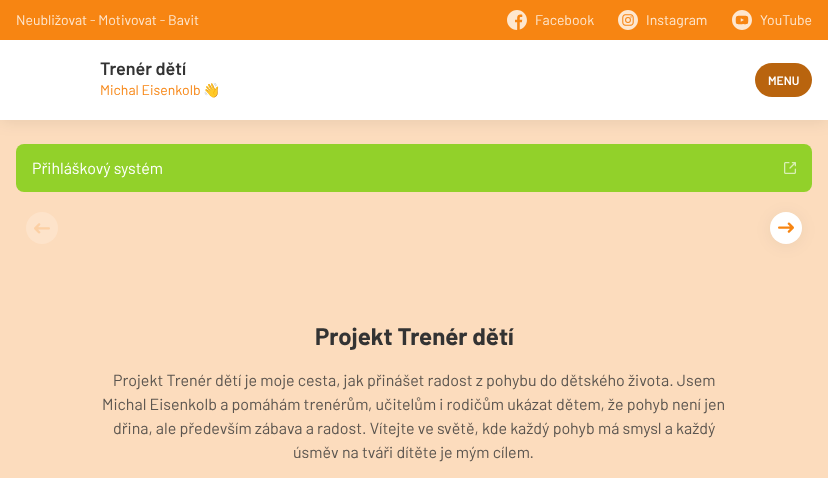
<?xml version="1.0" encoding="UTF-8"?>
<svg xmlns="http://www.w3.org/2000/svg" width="828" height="478">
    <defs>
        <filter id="blur1" x="-50%" y="-200%" width="200%" height="500%"><feGaussianBlur stdDeviation="8"/></filter>
    </defs>
    <rect width="100%" height="100%" fill="#FCDCBD"/>
    <rect x="770" y="214" width="32" height="32" rx="16" fill="#000000" fill-opacity="0.06" filter="url(#blur1)"/>
    <rect x="16" y="144" width="796" height="48" rx="8" fill="#92D12A"/>
    <rect x="0" y="2" width="828" height="120" fill="#000000" fill-opacity="0.08" filter="url(#blur1)"/>
    <rect x="0" y="40" width="828" height="80" fill="#FFFFFF"/>
    <rect x="0" y="0" width="828" height="40" fill="#F78512"/>
    <text x="16" y="25" font-family="Barlow" font-size="14" fill="#FDE7D0">Neubližovat - Motivovat - Bavit</text>
    <image x="507" y="10" width="20" height="20" href="img_01.png"/>
    <text x="535" y="25" font-family="Barlow" font-size="14" fill="#FDE7D0">Facebook</text>
    <image x="618" y="10" width="20" height="20" href="img_02.png"/>
    <text x="646" y="25" font-family="Barlow" font-size="14" fill="#FDE7D0">Instagram</text>
    <image x="732" y="10" width="20" height="20" href="img_03.png"/>
    <text x="760" y="25" font-family="Barlow" font-size="14" fill="#FDE7D0">YouTube</text>
    <text x="100" y="75" font-family="Barlow" font-size="18" font-weight="600" fill="#333333">Trenér dětí</text>
    <text x="100" y="95" font-family="Barlow" font-size="14" fill="#F78512">Michal Eisenkolb</text>
    <text x="203" y="95" font-family="Noto Color Emoji" font-size="14" fill="#F78512">👋</text>
    <rect x="755" y="63" width="57" height="34" rx="17" fill="#B9640E"/>
    <text x="768" y="85" font-family="Barlow" font-size="12" font-weight="600" fill="#FFFFFF">MENU</text>
    <text x="32" y="174" font-family="Barlow" font-size="16" fill="#FFFFFF">Přihláškový systém</text>
    <image x="784" y="162" width="12" height="12" href="img_04.png"/>
    <circle cx="42" cy="228" r="16" fill="#FDE3CA"/>
    <image x="34" y="223" width="16" height="11" href="img_05.png"/>
    <circle cx="786" cy="228" r="16" fill="#FFFFFF"/>
    <image x="778" y="222" width="16" height="11" href="img_06.png"/>
    <text x="315" y="345" font-family="Barlow" font-size="24" font-weight="700" fill="#333333">Projekt Trenér dětí</text>
    <text x="113" y="386" font-family="Barlow" font-size="16" fill="#5B554F">Projekt Trenér dětí je moje cesta, jak přinášet radost z pohybu do dětského života. Jsem</text>
    <text x="102" y="410" font-family="Barlow" font-size="16" fill="#5B554F">Michal Eisenkolb a pomáhám trenérům, učitelům i rodičům ukázat dětem, že pohyb není jen</text>
    <text x="113" y="434" font-family="Barlow" font-size="16" fill="#5B554F">dřina, ale především zábava a radost. Vítejte ve světě, kde každý pohyb má smysl a každý</text>
    <text x="293" y="458" font-family="Barlow" font-size="16" fill="#5B554F">úsměv na tváři dítěte je mým cílem.</text>
</svg>
